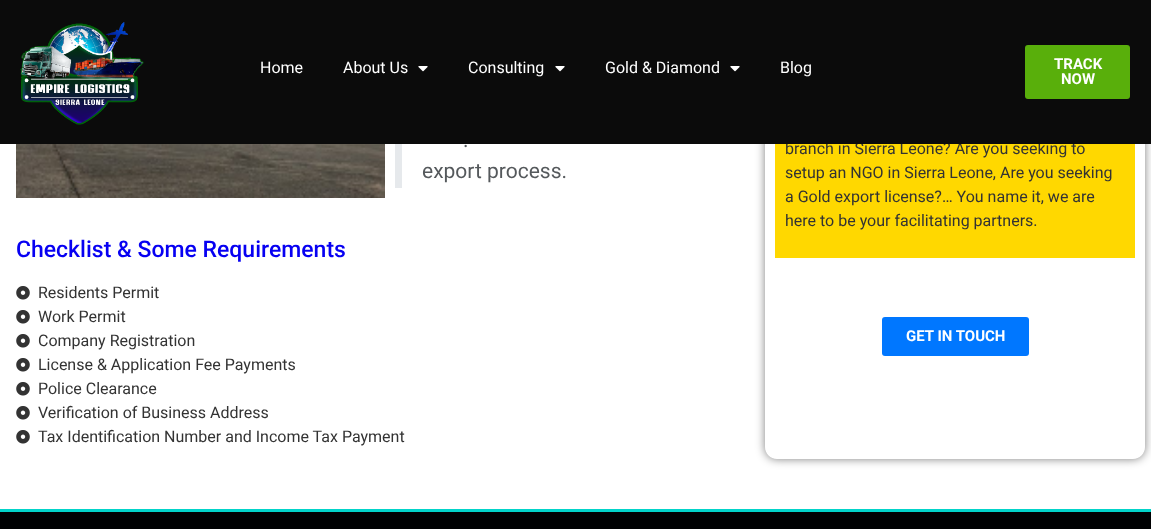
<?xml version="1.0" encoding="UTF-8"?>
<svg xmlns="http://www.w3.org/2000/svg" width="1151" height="529">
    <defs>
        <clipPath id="clip1"><path d="M 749 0 H 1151 V 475 H 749 Z M 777 -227 H 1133 C 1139.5 -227 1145 -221.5 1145 -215 V 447 C 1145 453.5 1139.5 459 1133 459 H 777 C 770.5 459 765 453.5 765 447 V -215 C 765 -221.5 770.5 -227 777 -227 Z" clip-rule="evenodd"/></clipPath>
        <filter id="blur1" x="-50%" y="-200%" width="200%" height="500%"><feGaussianBlur stdDeviation="5"/></filter>
    </defs>
    <rect width="100%" height="100%" fill="#FFFFFF"/>
    <g clip-path="url(#clip1)">
        <rect x="765" y="-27" width="380" height="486" rx="12" fill="#000000" fill-opacity="0.5" filter="url(#blur1)"/>
    </g>
    <rect x="775" y="144" width="360" height="114" fill="#FFD800"/>
    <text x="785" y="154" font-family="Roboto" font-size="16" fill="#333333">branch in Sierra Leone? Are you seeking to</text>
    <rect x="0" y="0" width="1151" height="144" fill="#0B0B0B"/>
    <image x="20" y="22" width="124" height="103" href="img_01.png"/>
    <text x="260" y="73" font-family="Roboto" font-size="16" fill="#FFFFFF">Home</text>
    <text x="343" y="73" font-family="Roboto" font-size="16" fill="#FFFFFF">About Us</text>
    <image x="418" y="66" width="10" height="6" href="img_02.png"/>
    <text x="468" y="73" font-family="Roboto" font-size="16" fill="#FFFFFF">Consulting</text>
    <image x="555" y="66" width="10" height="6" href="img_02.png"/>
    <text x="605" y="73" font-family="Roboto" font-size="16" fill="#FFFFFF">Gold &amp; Diamond</text>
    <image x="730" y="66" width="10" height="6" href="img_02.png"/>
    <text x="780" y="73" font-family="Roboto" font-size="16" fill="#FFFFFF">Blog</text>
    <rect x="1025" y="45" width="105" height="54" rx="3" fill="#59AF0B"/>
    <text x="1054" y="69" font-family="Roboto" font-size="15" font-weight="700" fill="#FFFFFF">TRACK</text>
    <text x="1061" y="84" font-family="Roboto" font-size="15" font-weight="700" fill="#FFFFFF">NOW</text>
    <image x="16" y="144" width="369" height="54" href="img_03.png"/>
    <rect x="395" y="144" width="7" height="44" fill="#E6E9EC"/>
    <text x="463" y="147" font-family="Roboto" font-size="21" fill="#55595C">.</text>
    <text x="422" y="178" font-family="Roboto" font-size="21" fill="#55595C">export process.</text>
    <text x="16" y="257" font-family="Roboto" font-size="23" font-weight="500" fill="#0700F2">Checklist &amp; Some Requirements</text>
    <image x="16" y="286" width="14" height="14" href="img_04.png"/>
    <text x="38" y="298" font-family="Roboto" font-size="16" fill="#333333">Residents Permit</text>
    <image x="16" y="310" width="14" height="14" href="img_04.png"/>
    <text x="38" y="322" font-family="Roboto" font-size="16" fill="#333333">Work Permit</text>
    <image x="16" y="334" width="14" height="14" href="img_04.png"/>
    <text x="38" y="346" font-family="Roboto" font-size="16" fill="#333333">Company Registration</text>
    <image x="16" y="358" width="14" height="14" href="img_04.png"/>
    <text x="38" y="370" font-family="Roboto" font-size="16" fill="#333333">License &amp; Application Fee Payments</text>
    <image x="16" y="382" width="14" height="14" href="img_04.png"/>
    <text x="38" y="394" font-family="Roboto" font-size="16" fill="#333333">Police Clearance</text>
    <image x="16" y="406" width="14" height="14" href="img_04.png"/>
    <text x="38" y="418" font-family="Roboto" font-size="16" fill="#333333">Verification of Business Address</text>
    <image x="16" y="430" width="14" height="14" href="img_04.png"/>
    <text x="38" y="442" font-family="Roboto" font-size="16" fill="#333333">Tax Identification Number and Income Tax Payment</text>
    <text font-family="Roboto" font-size="16" fill="#333333">
        <tspan x="785" y="178">setup an NGO in Sierra Leone, Are you seeking</tspan>
        <tspan x="785" y="202">a Gold export license?… You name it, we are</tspan>
        <tspan x="785" y="226">here to be your facilitating partners.</tspan>
    </text>
    <rect x="882" y="317" width="147" height="39" rx="3" fill="#0077FF"/>
    <text x="906" y="341" font-family="Roboto" font-size="15" font-weight="700" fill="#FFFFFF">GET IN TOUCH</text>
    <rect x="0" y="512" width="1151" height="17" fill="#000102"/>
    <rect x="0" y="509" width="1151" height="3" fill="#02D3C9"/>
</svg>
